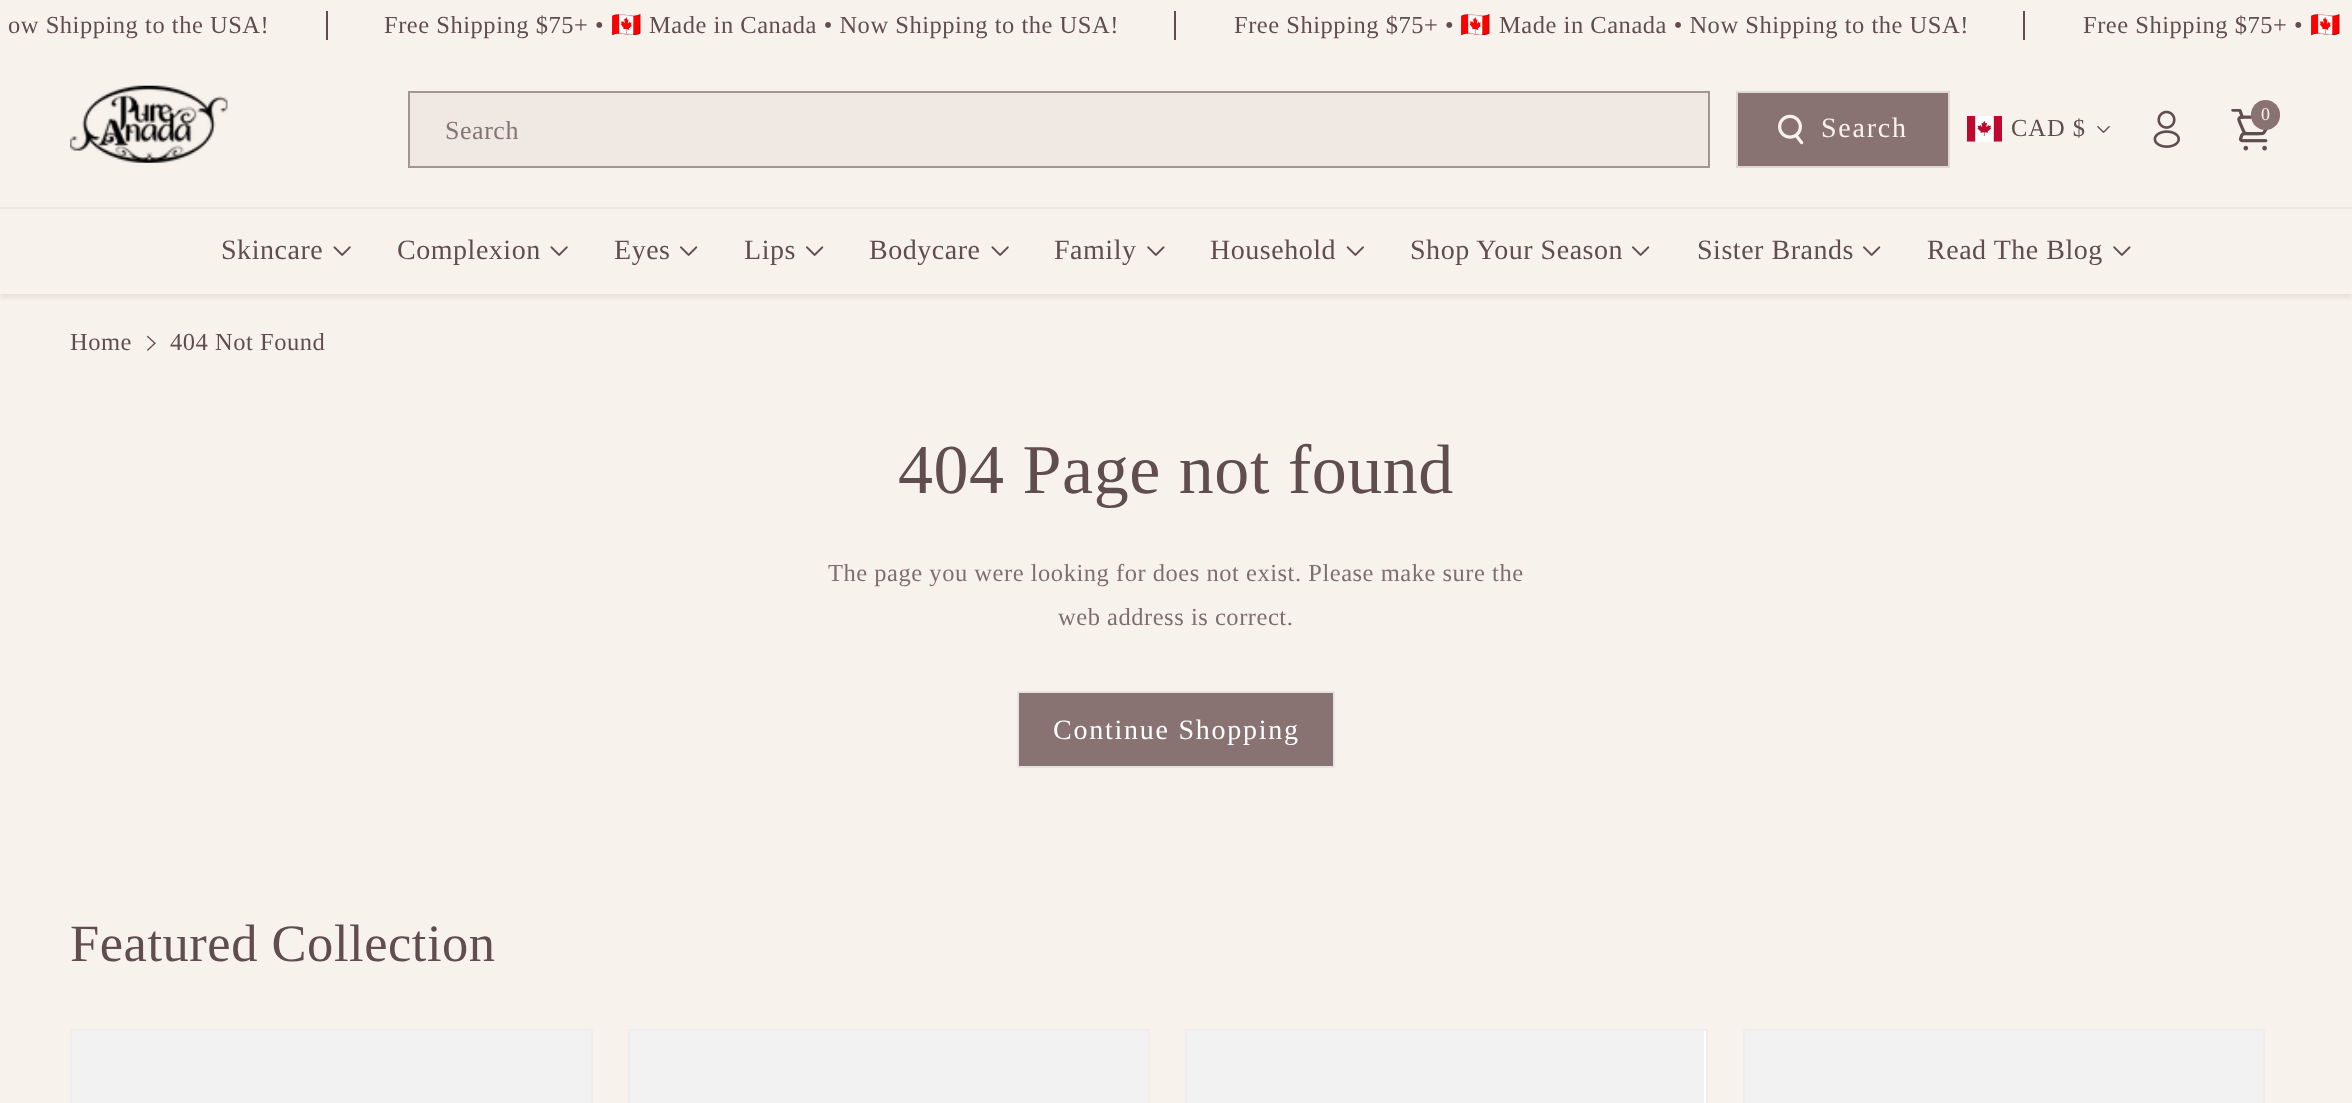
<?xml version="1.0" encoding="UTF-8"?>
<svg xmlns="http://www.w3.org/2000/svg" width="2352" height="1103">
    <defs>
        <clipPath id="clip1"><rect x="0" y="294" width="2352" height="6"/></clipPath>
        <filter id="blur1" x="-50%" y="-200%" width="200%" height="500%"><feGaussianBlur stdDeviation="2"/></filter>
    </defs>
    <rect width="100%" height="100%" fill="#F8F2EC"/>
    <text x="8" y="33" font-family="Liberation Serif" font-size="24.5" letter-spacing="0.53" fill="#604E4E">ow Shipping to the USA!</text>
    <rect x="326" y="11" width="2" height="29" fill="#604E4E"/>
    <text x="384" y="33" font-family="Liberation Serif" font-size="24.5" letter-spacing="0.53" fill="#604E4E">Free Shipping $75+ •</text>
    <text x="611" y="33" font-family="Noto Color Emoji" font-size="24.5" letter-spacing="0.53" fill="#604E4E">🇨🇦</text>
    <text x="649" y="33" font-family="Liberation Serif" font-size="24.5" letter-spacing="0.53" fill="#604E4E">Made in Canada • Now Shipping to the USA!</text>
    <rect x="1174" y="11" width="2" height="29" fill="#604E4E"/>
    <text x="1234" y="33" font-family="Liberation Serif" font-size="24.5" letter-spacing="0.53" fill="#604E4E">Free Shipping $75+ •</text>
    <text x="1460" y="33" font-family="Noto Color Emoji" font-size="24.5" letter-spacing="0.53" fill="#604E4E">🇨🇦</text>
    <text x="1499" y="33" font-family="Liberation Serif" font-size="24.5" letter-spacing="0.53" fill="#604E4E">Made in Canada • Now Shipping to the USA!</text>
    <rect x="2023" y="11" width="2" height="29" fill="#604E4E"/>
    <text x="2083" y="33" font-family="Liberation Serif" font-size="24.5" letter-spacing="0.53" fill="#604E4E">Free Shipping $75+ •</text>
    <text x="2310" y="33" font-family="Noto Color Emoji" font-size="24.5" letter-spacing="0.53" fill="#604E4E">🇨🇦</text>
    <g clip-path="url(#clip1)">
        <rect x="0" y="54" width="2352" height="244" fill="#604E4E" fill-opacity="0.1" filter="url(#blur1)"/>
    </g>
    <image x="70" y="85" width="158" height="78" href="img_01.png"/>
    <rect x="410" y="93" width="1298" height="73" fill="#EFE8E3"/>
    <rect x="409" y="92" width="1300" height="75" fill="none" stroke="#A29693" stroke-width="2"/>
    <text x="445" y="139" font-family="Liberation Serif" font-size="26" letter-spacing="0.53" fill="#847573">Search</text>
    <rect x="1738" y="93" width="210" height="73" fill="#897272"/>
    <image x="1778" y="114" width="26" height="31" href="img_02.png"/>
    <rect x="1737" y="92" width="212" height="75" fill="none" stroke="#E2D8D3" stroke-width="2"/>
    <text x="1821" y="137" font-family="Liberation Serif" font-size="28" letter-spacing="1.75" fill="#F8F2EC">Search</text>
    <image x="1967" y="116" width="35" height="26" href="img_03.png"/>
    <text x="2011" y="136" font-family="Liberation Serif" font-size="24.5" letter-spacing="1" fill="#604E4E">CAD $</text>
    <image x="2097" y="126" width="13" height="7" href="img_04.png"/>
    <image x="2153" y="110" width="27" height="38" href="img_05.png"/>
    <image x="2231" y="109" width="37" height="42" href="img_06.png"/>
    <rect x="2251" y="100" width="29" height="30" rx="14.5" fill="#897272"/>
    <text x="2261" y="120" font-family="Liberation Serif" font-size="18" letter-spacing="0.53" fill="#F8F2EC">0</text>
    <rect x="0" y="207" width="2352" height="2" fill="#EDE7E1"/>
    <text x="221" y="259" font-family="Liberation Serif" font-size="28" letter-spacing="0.53" fill="#604E4E">Skincare</text>
    <image x="333" y="246" width="18" height="10" href="img_07.png"/>
    <text x="397" y="259" font-family="Liberation Serif" font-size="28" letter-spacing="0.53" fill="#604E4E">Complexion</text>
    <image x="550" y="246" width="18" height="10" href="img_07.png"/>
    <text x="614" y="259" font-family="Liberation Serif" font-size="28" letter-spacing="0.53" fill="#604E4E">Eyes</text>
    <image x="680" y="246" width="18" height="10" href="img_08.png"/>
    <text x="744" y="259" font-family="Liberation Serif" font-size="28" letter-spacing="0.53" fill="#604E4E">Lips</text>
    <image x="806" y="246" width="18" height="10" href="img_08.png"/>
    <text x="869" y="259" font-family="Liberation Serif" font-size="28" letter-spacing="0.53" fill="#604E4E">Bodycare</text>
    <image x="991" y="246" width="18" height="10" href="img_07.png"/>
    <text x="1054" y="259" font-family="Liberation Serif" font-size="28" letter-spacing="0.53" fill="#604E4E">Family</text>
    <image x="1147" y="246" width="18" height="10" href="img_09.png"/>
    <text x="1210" y="259" font-family="Liberation Serif" font-size="28" letter-spacing="0.53" fill="#604E4E">Household</text>
    <image x="1346" y="246" width="18" height="10" href="img_10.png"/>
    <text x="1410" y="259" font-family="Liberation Serif" font-size="28" letter-spacing="0.53" fill="#604E4E">Shop Your Season</text>
    <image x="1632" y="246" width="18" height="10" href="img_08.png"/>
    <text x="1697" y="259" font-family="Liberation Serif" font-size="28" letter-spacing="0.53" fill="#604E4E">Sister Brands</text>
    <image x="1863" y="246" width="18" height="10" href="img_08.png"/>
    <text x="1927" y="259" font-family="Liberation Serif" font-size="28" letter-spacing="0.53" fill="#604E4E">Read The Blog</text>
    <image x="2113" y="246" width="18" height="10" href="img_09.png"/>
    <text x="70" y="350" font-family="Liberation Serif" font-size="24.5" letter-spacing="0.53" fill="#604E4E">Home</text>
    <image x="146" y="335" width="10" height="16" href="img_11.png"/>
    <text x="170" y="350" font-family="Liberation Serif" font-size="24.5" letter-spacing="0.53" fill="#604E4E">404 Not Found</text>
    <text x="898" y="493" font-family="Liberation Serif" font-size="70" letter-spacing="0.53" fill="#604E4E">404 Page not found</text>
    <text x="828" y="581" font-family="Liberation Serif" font-size="24.5" letter-spacing="0.53" fill="#7E6F6E">The page you were looking for does not exist. Please make sure the</text>
    <text x="1058" y="625" font-family="Liberation Serif" font-size="24.5" letter-spacing="0.53" fill="#7E6F6E">web address is correct.</text>
    <rect x="1019" y="693" width="314" height="73" fill="#897272"/>
    <rect x="1018" y="692" width="316" height="75" fill="none" stroke="#E7E3E3" stroke-width="2"/>
    <text x="1053" y="739" font-family="Liberation Serif" font-size="28" letter-spacing="1.75" fill="#FFFFFF">Continue Shopping</text>
    <text x="70" y="961" font-family="Liberation Serif" font-size="52.5" letter-spacing="0.53" fill="#604E4E">Featured Collection</text>
    <rect x="71" y="1030" width="521" height="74" fill="none" stroke="#EFEDED" stroke-width="2"/>
    <rect x="72" y="1031" width="519" height="72" fill="#F2F2F2"/>
    <rect x="629" y="1030" width="520" height="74" fill="none" stroke="#EFEDED" stroke-width="2"/>
    <rect x="630" y="1031" width="518" height="72" fill="#F2F2F2"/>
    <rect x="1704" y="1031" width="2" height="72" fill="#FFFFFF"/>
    <rect x="1186" y="1030" width="521" height="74" fill="none" stroke="#EFEDED" stroke-width="2"/>
    <rect x="1187" y="1031" width="517" height="72" fill="#F2F2F2"/>
    <rect x="1744" y="1030" width="520" height="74" fill="none" stroke="#EFEDED" stroke-width="2"/>
    <rect x="1745" y="1031" width="518" height="72" fill="#F2F2F2"/>
</svg>
